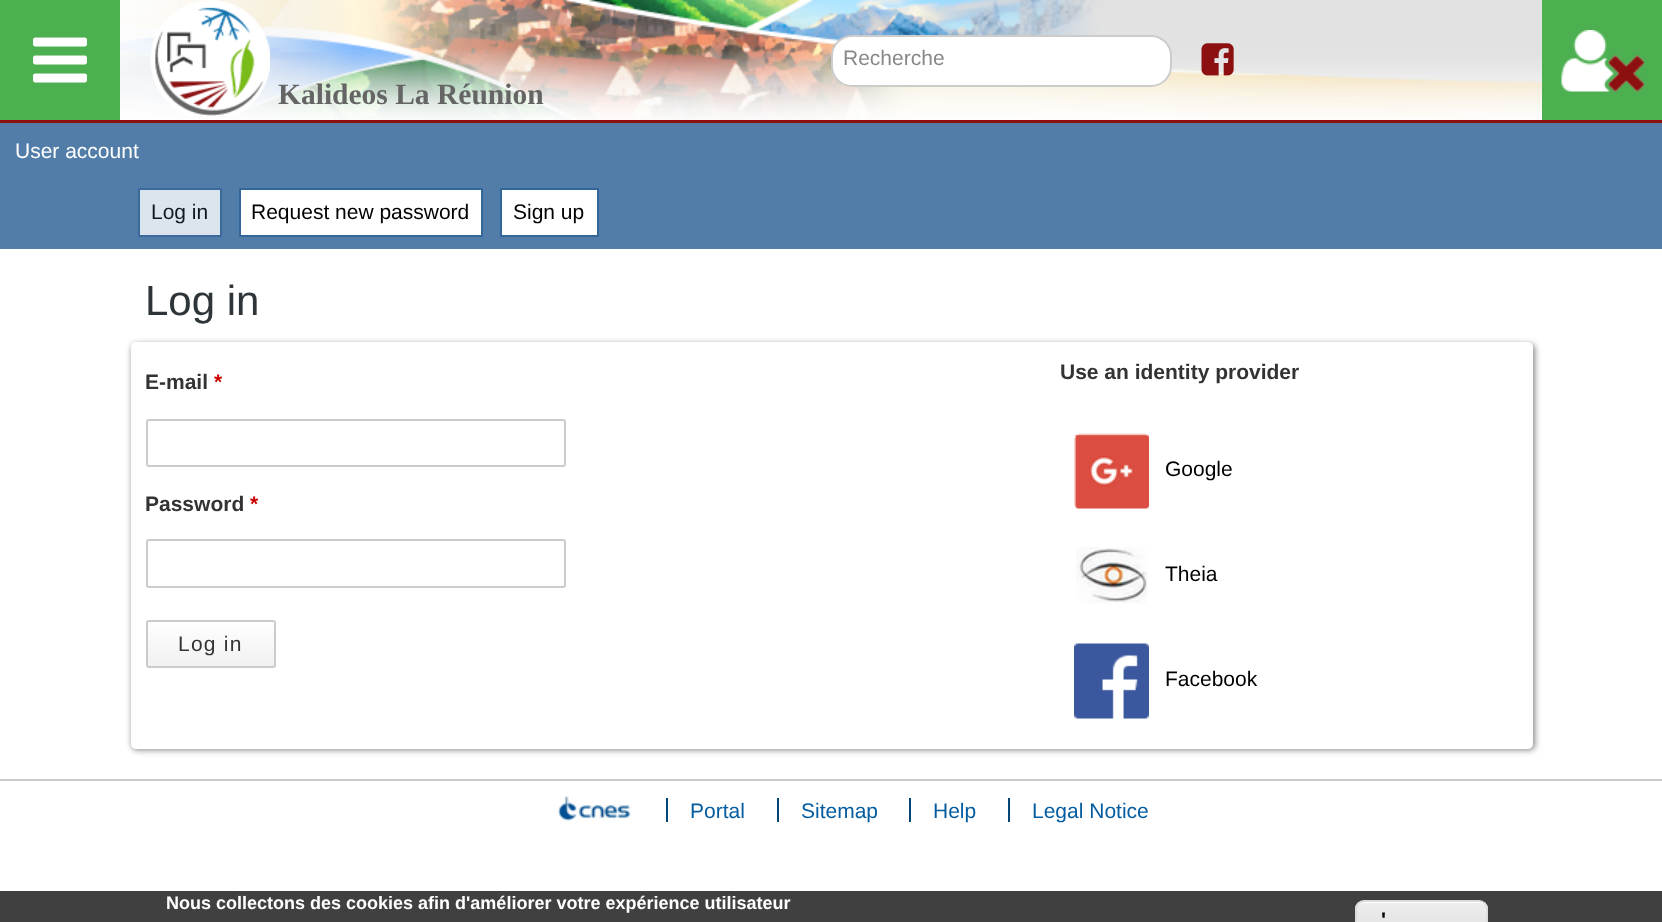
<?xml version="1.0" encoding="UTF-8"?>
<svg xmlns="http://www.w3.org/2000/svg" width="1662" height="922">
    <defs>
        <filter id="blur1" x="-50%" y="-200%" width="200%" height="500%"><feGaussianBlur stdDeviation="3"/></filter>
        <clipPath id="clip1"><rect x="146" y="620" width="130" height="48" rx="3"/></clipPath>
        <linearGradient id="g1" gradientUnits="userSpaceOnUse" x1="211" y1="621" x2="211" y2="666"><stop offset="0" stop-color="#FFFFFF"/><stop offset="1" stop-color="#F1F1F1"/></linearGradient>
        <clipPath id="clip2"><rect x="1355" y="900" width="133" height="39" rx="9"/></clipPath>
        <linearGradient id="g2" gradientUnits="userSpaceOnUse" x1="1421" y1="902" x2="1421" y2="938"><stop offset="0.05" stop-color="#EDEDED"/><stop offset="1" stop-color="#DFDFDF"/></linearGradient>
    </defs>
    <rect width="100%" height="100%" fill="#FFFFFF"/>
    <rect x="0" y="120" width="1662" height="3" fill="#8C1010"/>
    <rect x="0" y="0" width="120" height="120" fill="#4CAF50"/>
    <image x="33" y="37" width="54" height="46" href="img_01.png"/>
    <image x="120" y="0" width="1422" height="120" href="img_02.png"/>
    <image x="150" y="0" width="120" height="116" href="img_03.png"/>
    <rect x="832" y="36" width="339" height="50" rx="20" fill="#FFFFFF" stroke="#CCCCCC" stroke-width="2"/>
    <text x="843" y="65" font-family="Liberation Sans" font-size="21" fill="#888888">Recherche</text>
    <image x="1201" y="43" width="33" height="33" href="img_04.png"/>
    <text x="278" y="104" font-family="Liberation Serif" font-size="29.5" font-weight="700" fill="#656565">Kalideos La Réunion</text>
    <rect x="1542" y="0" width="120" height="120" fill="#4CAF50"/>
    <image x="1561" y="30" width="83" height="62" href="img_05.png"/>
    <rect x="0" y="123" width="1662" height="126" fill="#527DA8"/>
    <text x="15" y="158" font-family="Liberation Sans" font-size="21" fill="#FFFFFF">User account</text>
    <rect x="139" y="189" width="82" height="47" fill="#DCE5EE" stroke="#396B9C" stroke-width="2"/>
    <text x="151" y="219" font-family="Liberation Sans" font-size="21" fill="#101922">Log in</text>
    <rect x="240" y="189" width="242" height="47" fill="#FFFFFF" stroke="#336699" stroke-width="2"/>
    <text x="251" y="219" font-family="Liberation Sans" font-size="21" fill="#000000">Request new password</text>
    <rect x="501" y="189" width="97" height="47" fill="#FFFFFF" stroke="#336699" stroke-width="2"/>
    <text x="513" y="219" font-family="Liberation Sans" font-size="21" fill="#000000">Sign up</text>
    <text x="145" y="315" font-family="Liberation Sans" font-size="42" fill="#2D3538">Log in</text>
    <rect x="132" y="344" width="1403" height="406" rx="5" fill="#858585" filter="url(#blur1)"/>
    <rect x="131" y="342" width="1402" height="407" rx="5" fill="#FFFFFF"/>
    <text x="145" y="389" font-family="Liberation Sans" font-size="21" font-weight="700" fill="#333333">E-mail</text>
    <text x="214" y="389" font-family="Liberation Sans" font-size="21" font-weight="700" fill="#CC0000">*</text>
    <rect x="147" y="420" width="418" height="46" rx="2" fill="none" stroke="#CCCCCC" stroke-width="2"/>
    <text x="145" y="511" font-family="Liberation Sans" font-size="21" font-weight="700" fill="#333333">Password</text>
    <text x="250" y="511" font-family="Liberation Sans" font-size="21" font-weight="700" fill="#CC0000">*</text>
    <rect x="147" y="540" width="418" height="47" rx="2" fill="none" stroke="#CCCCCC" stroke-width="2"/>
    <g clip-path="url(#clip1)">
        <rect x="146" y="621" width="130" height="45" fill="url(#g1)"/>
    </g>
    <rect x="147" y="621" width="128" height="46" rx="2" fill="none" stroke="#CBCBCB" stroke-width="2"/>
    <text x="178" y="651" font-family="Liberation Sans" font-size="21" letter-spacing="1.25" fill="#333333">Log in</text>
    <text x="1060" y="379" font-family="Liberation Sans" font-size="21" font-weight="700" fill="#333333">Use an identity provider</text>
    <image x="1074" y="433" width="75" height="76" href="img_06.png"/>
    <text x="1165" y="476" font-family="Liberation Sans" font-size="21" fill="#000000">Google</text>
    <image x="1076" y="547" width="72" height="57" href="img_07.png"/>
    <text x="1165" y="581" font-family="Liberation Sans" font-size="21" fill="#000000">Theia</text>
    <image x="1074" y="643" width="75" height="76" href="img_08.png"/>
    <text x="1165" y="686" font-family="Liberation Sans" font-size="21" fill="#000000">Facebook</text>
    <rect x="0" y="779" width="1662" height="2" fill="#CCCCCC"/>
    <image x="557" y="796" width="74" height="25" href="img_09.png"/>
    <text x="690" y="818" font-family="Liberation Sans" font-size="21" fill="#045DA0">Portal</text>
    <rect x="666" y="798" width="2" height="24" fill="#004777"/>
    <text x="801" y="818" font-family="Liberation Sans" font-size="21" fill="#045DA0">Sitemap</text>
    <rect x="777" y="798" width="2" height="24" fill="#004777"/>
    <text x="933" y="818" font-family="Liberation Sans" font-size="21" fill="#045DA0">Help</text>
    <rect x="909" y="798" width="2" height="24" fill="#004777"/>
    <text x="1032" y="818" font-family="Liberation Sans" font-size="21" fill="#045DA0">Legal Notice</text>
    <rect x="1008" y="798" width="2" height="24" fill="#004777"/>
    <rect x="0" y="891" width="1662" height="31" fill="#404040"/>
    <text x="166" y="909" font-family="Liberation Sans" font-size="18" font-weight="700" fill="#FFFFFF">Nous collectons des cookies afin d'améliorer votre expérience utilisateur</text>
    <g clip-path="url(#clip2)">
        <rect x="1355" y="902" width="133" height="20" fill="url(#g2)"/>
    </g>
    <path d="M 1364 903 H 1479 C 1483 903 1486 906 1486 910 V 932 V 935 C 1486 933 1487 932 1487 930 V 910 C 1487 906 1483 902 1479 902 H 1364 C 1360 902 1356 906 1356 910 C 1356 906 1359 903 1364 903 Z" fill="#FFFFFF"/>
    <rect x="1356" y="901" width="131" height="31" rx="8" fill="none" stroke="#DCDCDC" stroke-width="2"/>
    <text x="1381" y="927" font-family="Liberation Sans" font-size="21" font-weight="700" letter-spacing="1.25" fill="#000000">'</text>
</svg>
